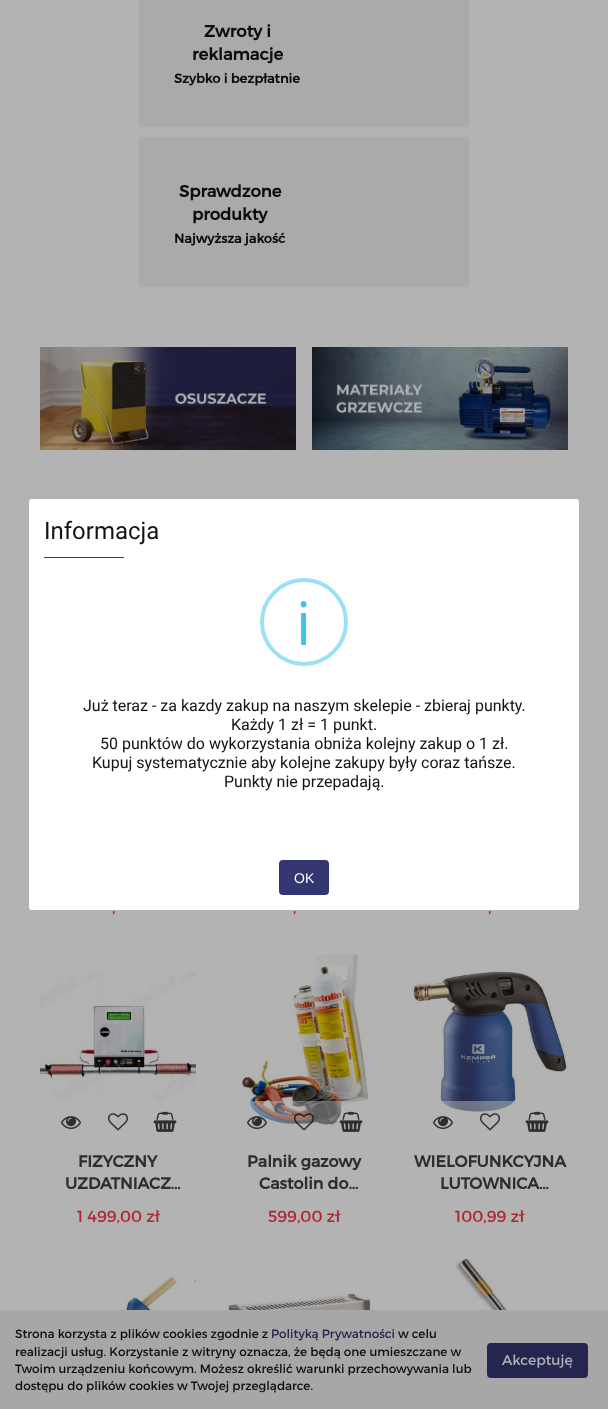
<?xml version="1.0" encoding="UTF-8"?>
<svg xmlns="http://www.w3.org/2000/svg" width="608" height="1409">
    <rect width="100%" height="100%" fill="#B3B3B3"/>
    <rect x="139" y="0" width="330" height="127" fill="#AAAAAA"/>
    <text x="204" y="37" font-family="Montserrat" font-size="16.5" font-weight="700" fill="#0D0D0D">Zwroty i</text>
    <text x="192" y="60" font-family="Montserrat" font-size="16.5" font-weight="700" fill="#0D0D0D">reklamacje</text>
    <text x="174" y="83" font-family="Montserrat" font-size="13" font-weight="700" fill="#0D0D0D">Szybko i bezpłatnie</text>
    <rect x="139" y="137" width="330" height="150" fill="#AAAAAA"/>
    <text x="179" y="197" font-family="Montserrat" font-size="16.5" font-weight="700" fill="#0D0D0D">Sprawdzone</text>
    <text x="192" y="220" font-family="Montserrat" font-size="16.5" font-weight="700" fill="#0D0D0D">produkty</text>
    <text x="174" y="243" font-family="Montserrat" font-size="13" font-weight="700" fill="#0D0D0D">Najwyższa jakość</text>
    <image x="40" y="347" width="256" height="103" href="img_01.png"/>
    <image x="312" y="347" width="256" height="103" href="img_02.png"/>
    <text x="112" y="913" font-family="Montserrat" font-size="16" fill="#B32530">,</text>
    <text x="293" y="913" font-family="Montserrat" font-size="16" fill="#B32530">,</text>
    <text x="488" y="913" font-family="Montserrat" font-size="16" fill="#B32530">,</text>
    <image x="40" y="971" width="156" height="132" href="img_03.png"/>
    <rect x="58" y="1101" width="100" height="2" fill="#B3B3B3" fill-opacity="0.5"/>
    <image x="61" y="1116" width="20" height="13" href="img_04.png"/>
    <image x="108" y="1113" width="20" height="18" href="img_05.png"/>
    <image x="153" y="1111" width="24" height="21" href="img_06.png"/>
    <text x="78" y="1167" font-family="Montserrat" font-size="16" font-weight="700" fill="#2E2E2E">FIZYCZNY</text>
    <text x="65" y="1189" font-family="Montserrat" font-size="16" font-weight="700" fill="#2E2E2E">UZDATNIACZ…</text>
    <text x="77" y="1222" font-family="Montserrat" font-size="16" fill="#B32530">1 499,00 zł</text>
    <image x="242" y="954" width="127" height="174" href="img_07.png"/>
    <rect x="250" y="1101" width="110" height="25" fill="#B3B3B3" fill-opacity="0.5"/>
    <image x="247" y="1116" width="20" height="13" href="img_08.png"/>
    <image x="294" y="1113" width="20" height="18" href="img_09.png"/>
    <image x="339" y="1111" width="24" height="21" href="img_10.png"/>
    <text x="247" y="1167" font-family="Montserrat" font-size="16" font-weight="700" fill="#2E2E2E">Palnik gazowy</text>
    <text x="259" y="1189" font-family="Montserrat" font-size="16" font-weight="700" fill="#2E2E2E">Castolin do…</text>
    <text x="268" y="1222" font-family="Montserrat" font-size="16" fill="#B32530">599,00 zł</text>
    <image x="412" y="971" width="156" height="142" href="img_11.png"/>
    <rect x="441" y="1101" width="75" height="11" fill="#B3B3B3" fill-opacity="0.5"/>
    <image x="433" y="1116" width="20" height="13" href="img_04.png"/>
    <image x="480" y="1113" width="20" height="18" href="img_05.png"/>
    <image x="525" y="1111" width="24" height="21" href="img_06.png"/>
    <text x="414" y="1167" font-family="Montserrat" font-size="16" font-weight="700" fill="#2E2E2E">WIELOFUNKCYJNA</text>
    <text x="440" y="1189" font-family="Montserrat" font-size="16" font-weight="700" fill="#2E2E2E">LUTOWNICA…</text>
    <text x="455" y="1222" font-family="Montserrat" font-size="16" fill="#B32530">100,99 zł</text>
    <image x="45" y="1276" width="151" height="34" href="img_12.png"/>
    <image x="226" y="1293" width="151" height="17" href="img_13.png"/>
    <image x="455" y="1258" width="72" height="52" href="img_14.png"/>
    <rect x="29" y="499" width="550" height="411" rx="3" fill="#FFFFFF"/>
    <text x="44" y="539" font-family="Roboto" font-size="24" fill="#131313">Informacja</text>
    <rect x="44" y="557" width="80" height="1" fill="#343672"/>
    <circle cx="304" cy="622" r="42" fill="none" stroke="#9DE0F6" stroke-width="4"/>
    <text x="296" y="645" font-family="Open Sans" font-size="60" fill="#3FC3EE">i</text>
    <text x="83" y="711" font-family="Roboto" font-size="16" fill="#131313">Już teraz - za kazdy zakup na naszym skelepie - zbieraj punkty.</text>
    <text x="231" y="730" font-family="Roboto" font-size="16" fill="#131313">Każdy 1 zł = 1 punkt.</text>
    <text x="100" y="749" font-family="Roboto" font-size="16" fill="#131313">50 punktów do wykorzystania obniża kolejny zakup o 1 zł.</text>
    <text x="92" y="768" font-family="Roboto" font-size="16" fill="#131313">Kupuj systematycznie aby kolejne zakupy były coraz tańsze.</text>
    <text x="224" y="787" font-family="Roboto" font-size="16" fill="#131313">Punkty nie przepadają.</text>
    <rect x="280.5" y="861.5" width="47" height="32" rx="2.5" fill="#343672" stroke="#343672" stroke-width="3"/>
    <text x="294" y="883" font-family="Liberation Sans" font-size="14" fill="#FFFFFF">OK</text>
    <rect x="0" y="1310" width="608" height="99" fill="#A7A7A7"/>
    <text x="15" y="1338" font-family="Montserrat" font-size="12" fill="#0D0D0D">Strona korzysta z plików cookies zgodnie z</text>
    <text x="271" y="1338" font-family="Montserrat" font-size="12" fill="#242650">Polityką Prywatności</text>
    <text x="398" y="1338" font-family="Montserrat" font-size="12" fill="#0D0D0D">w celu</text>
    <text font-family="Montserrat" font-size="12" fill="#0D0D0D">
        <tspan x="15" y="1356">realizacji usług. Korzystanie z witryny oznacza, że będą one umieszczane w</tspan>
        <tspan x="15" y="1373">Twoim urządzeniu końcowym. Możesz określić warunki przechowywania lub</tspan>
        <tspan x="15" y="1390">dostępu do plików cookies w Twojej przeglądarce.</tspan>
    </text>
    <rect x="488.5" y="1344.5" width="98" height="32" rx="2.5" fill="#242650" stroke="#242650" stroke-width="3"/>
    <text x="502" y="1365" font-family="Montserrat" font-size="14" fill="#B3B3B3">Akceptuję</text>
</svg>
